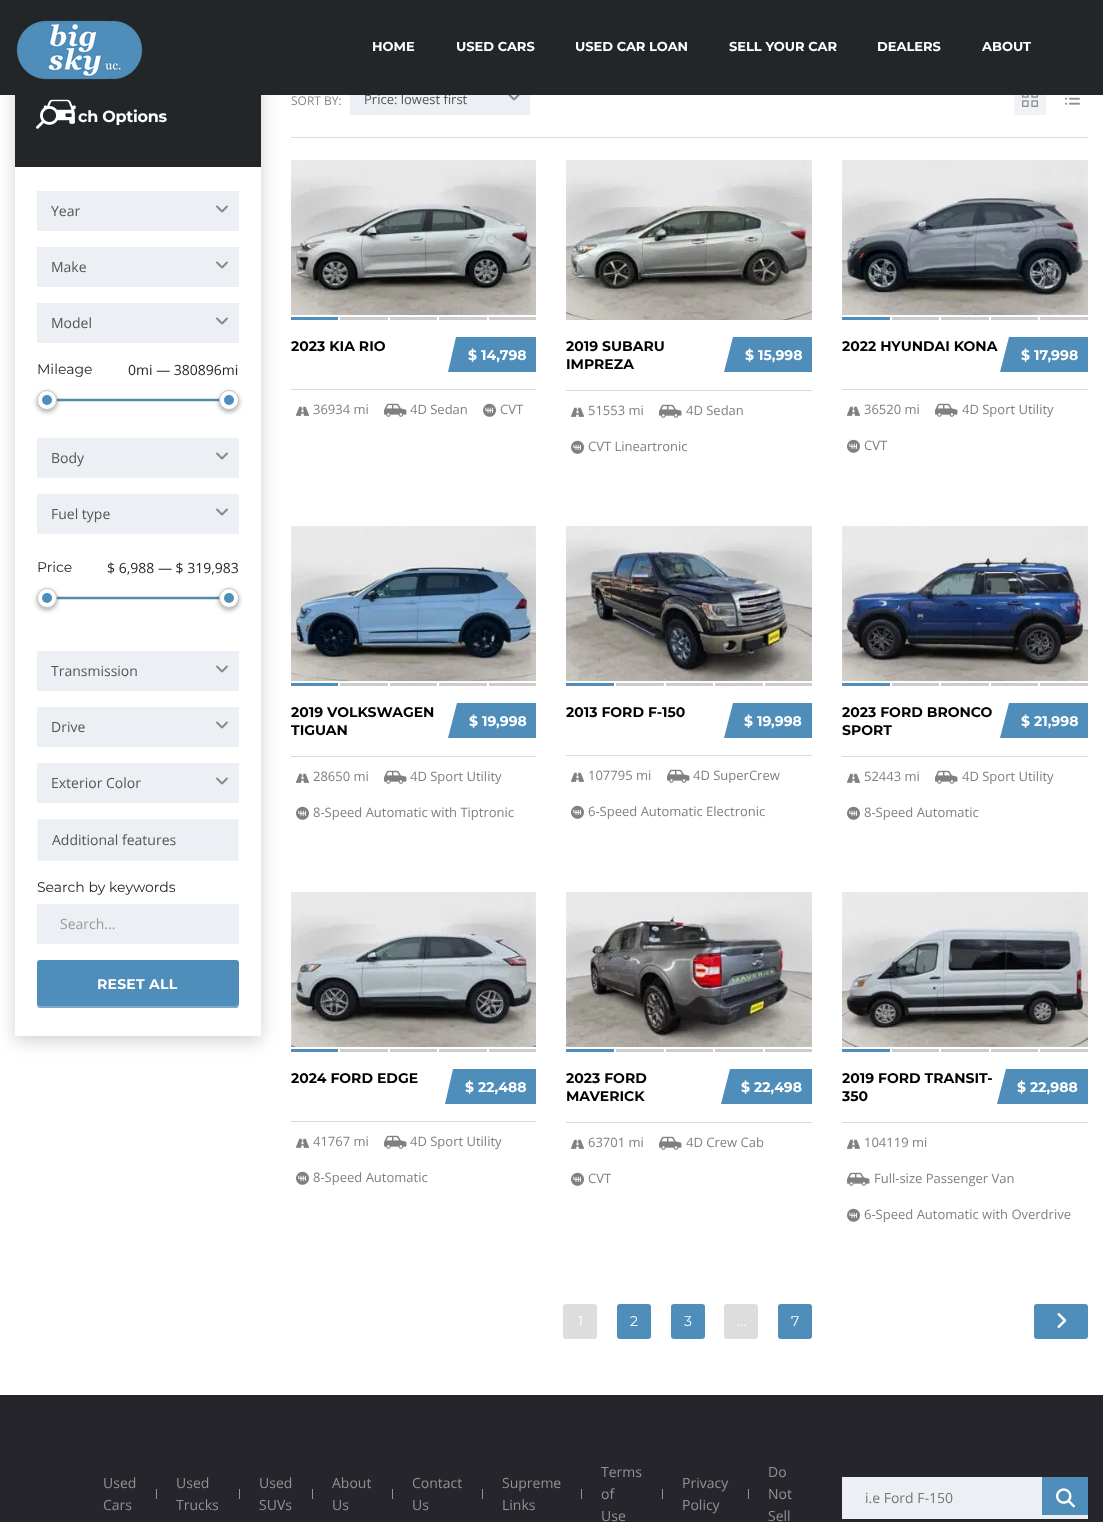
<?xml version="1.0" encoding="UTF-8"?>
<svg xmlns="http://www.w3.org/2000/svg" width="1103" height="1522">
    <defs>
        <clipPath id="clip1"><path d="M 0 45 H 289 V 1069 H 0 Z M 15 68 H 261 V 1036 H 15 Z" clip-rule="evenodd"/></clipPath>
        <filter id="blur1" x="-50%" y="-200%" width="200%" height="500%"><feGaussianBlur stdDeviation="9"/></filter>
        <filter id="blur2" x="-50%" y="-200%" width="200%" height="500%"><feGaussianBlur stdDeviation="2.5"/></filter>
    </defs>
    <rect width="100%" height="100%" fill="#FFFFFF"/>
    <g clip-path="url(#clip1)">
        <rect x="15" y="73" width="246" height="968" fill="#000000" fill-opacity="0.18" filter="url(#blur1)"/>
    </g>
    <rect x="350" y="95" width="180" height="20" fill="#ECEFF3"/>
    <text x="364" y="104" font-family="Open Sans" font-size="13" fill="#555555">Price: lowest first</text>
    <rect x="0" y="0" width="1103" height="95" fill="#232628"/>
    <image x="16" y="20" width="127" height="60" href="img_01.png"/>
    <text x="372" y="51" font-family="Montserrat" font-size="13" font-weight="100" fill="#FFFFFF">HOME</text>
    <text x="456" y="51" font-family="Montserrat" font-size="13" font-weight="100" fill="#FFFFFF">USED CARS</text>
    <text x="575" y="51" font-family="Montserrat" font-size="13" font-weight="100" fill="#FFFFFF">USED CAR LOAN</text>
    <text x="729" y="51" font-family="Montserrat" font-size="13" font-weight="100" fill="#FFFFFF">SELL YOUR CAR</text>
    <text x="877" y="51" font-family="Montserrat" font-size="13" font-weight="100" fill="#FFFFFF">DEALERS</text>
    <text x="982" y="51" font-family="Montserrat" font-size="13" font-weight="100" fill="#FFFFFF">ABOUT</text>
    <rect x="15" y="95" width="246" height="72" fill="#232628"/>
    <image x="36" y="99" width="40" height="30" href="img_02.png"/>
    <text x="78" y="122" font-family="Montserrat" font-size="16" font-weight="100" letter-spacing="-0.25" fill="#FFFFFF">ch Options</text>
    <rect x="37" y="191" width="202" height="40" fill="#ECEFF3"/>
    <text x="51" y="216" font-family="Open Sans" font-size="14" fill="#555555">Year</text>
    <image x="216" y="205" width="12" height="8" href="img_03.png"/>
    <rect x="37" y="247" width="202" height="40" fill="#ECEFF3"/>
    <text x="51" y="272" font-family="Open Sans" font-size="14" fill="#555555">Make</text>
    <image x="216" y="261" width="12" height="8" href="img_03.png"/>
    <rect x="37" y="303" width="202" height="40" fill="#ECEFF3"/>
    <text x="51" y="328" font-family="Open Sans" font-size="14" fill="#555555">Model</text>
    <image x="216" y="317" width="12" height="8" href="img_03.png"/>
    <text x="37" y="374" font-family="'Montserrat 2'" font-size="14" font-weight="100" fill="#232628">Mileage</text>
    <text x="128" y="375" font-family="Open Sans" font-size="14" fill="#232628">0mi — 380896mi</text>
    <rect x="46.5" y="398.5" width="183" height="3" fill="none" stroke="#DDDDDD"/>
    <rect x="56" y="399" width="164" height="2" fill="#4F8EBA"/>
    <rect x="37" y="392" width="20" height="20" rx="10" fill="#000000" fill-opacity="0.36" filter="url(#blur2)"/>
    <circle cx="47" cy="400" r="9.5" fill="#FFFFFF" stroke="#C5C5C5"/>
    <circle cx="47" cy="400" r="5" fill="#4F8EBA"/>
    <rect x="219" y="392" width="20" height="20" rx="10" fill="#000000" fill-opacity="0.36" filter="url(#blur2)"/>
    <circle cx="229" cy="400" r="9.5" fill="#FFFFFF" stroke="#C5C5C5"/>
    <circle cx="229" cy="400" r="5" fill="#4F8EBA"/>
    <rect x="37" y="438" width="202" height="40" fill="#ECEFF3"/>
    <text x="51" y="463" font-family="Open Sans" font-size="14" fill="#555555">Body</text>
    <image x="216" y="452" width="12" height="8" href="img_03.png"/>
    <rect x="37" y="494" width="202" height="40" fill="#ECEFF3"/>
    <text x="51" y="519" font-family="Open Sans" font-size="14" fill="#555555">Fuel type</text>
    <image x="216" y="508" width="12" height="8" href="img_03.png"/>
    <text x="37" y="572" font-family="'Montserrat 2'" font-size="14" font-weight="100" fill="#232628">Price</text>
    <text x="107" y="573" font-family="Open Sans" font-size="14" fill="#232628">$ 6,988 — $ 319,983</text>
    <rect x="46.5" y="596.5" width="183" height="3" fill="none" stroke="#DDDDDD"/>
    <rect x="56" y="597" width="164" height="2" fill="#4F8EBA"/>
    <rect x="37" y="590" width="20" height="20" rx="10" fill="#000000" fill-opacity="0.36" filter="url(#blur2)"/>
    <circle cx="47" cy="598" r="9.5" fill="#FFFFFF" stroke="#C5C5C5"/>
    <circle cx="47" cy="598" r="5" fill="#4F8EBA"/>
    <rect x="219" y="590" width="20" height="20" rx="10" fill="#000000" fill-opacity="0.36" filter="url(#blur2)"/>
    <circle cx="229" cy="598" r="9.5" fill="#FFFFFF" stroke="#C5C5C5"/>
    <circle cx="229" cy="598" r="5" fill="#4F8EBA"/>
    <rect x="37" y="651" width="202" height="40" fill="#ECEFF3"/>
    <text x="51" y="676" font-family="Open Sans" font-size="14" fill="#555555">Transmission</text>
    <image x="216" y="665" width="12" height="8" href="img_03.png"/>
    <rect x="37" y="707" width="202" height="40" fill="#ECEFF3"/>
    <text x="51" y="732" font-family="Open Sans" font-size="14" fill="#555555">Drive</text>
    <image x="216" y="721" width="12" height="8" href="img_03.png"/>
    <rect x="37" y="763" width="202" height="40" fill="#ECEFF3"/>
    <text x="51" y="788" font-family="Open Sans" font-size="14" fill="#555555">Exterior Color</text>
    <image x="216" y="777" width="12" height="8" href="img_03.png"/>
    <rect x="37.5" y="819.5" width="201" height="41" fill="#ECEFF3" stroke="#F4F5F8"/>
    <text x="52" y="845" font-family="Open Sans" font-size="14" fill="#555555">Additional features</text>
    <text x="37" y="892" font-family="'Montserrat 2'" font-size="14" font-weight="100" fill="#232628">Search by keywords</text>
    <rect x="37" y="904" width="202" height="40" fill="#ECEFF3"/>
    <text x="60" y="929" font-family="Open Sans" font-size="14" fill="#999999">Search...</text>
    <path d="M 37 1003 C 37 1005 37 1008 40 1008 H 237 C 239 1007 239 1005 239 1003 C 239 1005 238 1006 236 1006 H 39 L 38 1005 Z" fill="#7BAACB"/>
    <rect x="37" y="960" width="202" height="46" rx="3" fill="#4F8EBA"/>
    <text x="97" y="989" font-family="Montserrat" font-size="14" font-weight="100" letter-spacing="0.25" fill="#FFFFFF">RESET ALL</text>
    <rect x="291" y="137" width="797" height="1" fill="#DDDDDD"/>
    <text x="291" y="105" font-family="Open Sans" font-size="12" fill="#888888">SORT BY:</text>
    <image x="508" y="95" width="12" height="6" href="img_04.png"/>
    <rect x="1014" y="95" width="32" height="20" fill="#F0F2F5"/>
    <image x="1022" y="95" width="16" height="12" href="img_05.png"/>
    <image x="1065" y="97" width="15" height="8" href="img_06.png"/>
    <image x="291" y="160" width="245" height="155" href="img_07.png"/>
    <rect x="291" y="317" width="47" height="3" fill="#4F8EBA"/>
    <rect x="340" y="317" width="48" height="3" fill="#CCCCCC"/>
    <rect x="390" y="317" width="47" height="3" fill="#CCCCCC"/>
    <rect x="439" y="317" width="48" height="3" fill="#CCCCCC"/>
    <rect x="489" y="317" width="47" height="3" fill="#CCCCCC"/>
    <rect x="291" y="389" width="245" height="1" fill="#D9D9D9"/>
    <text x="291" y="351" font-family="Montserrat" font-size="14" font-weight="100" fill="#010101">2023 KIA RIO</text>
    <rect x="480" y="337" width="56" height="35" fill="#4F8EBA"/>
    <path d="M 456 337 H 488 L 480 372 H 448 Z" fill="#4F8EBA"/>
    <text x="468" y="360" font-family="Montserrat" font-size="14" font-weight="100" fill="#FFFFFF">$ 14,798</text>
    <image x="296" y="406" width="13" height="10" href="img_08.png"/>
    <text x="313" y="414" font-family="Open Sans" font-size="13" fill="#808080">36934 mi</text>
    <image x="384" y="403" width="23" height="14" href="img_09.png"/>
    <text x="410" y="414" font-family="Open Sans" font-size="13" fill="#808080">4D Sedan</text>
    <image x="483" y="403" width="13" height="14" href="img_10.png"/>
    <text x="500" y="414" font-family="Open Sans" font-size="13" fill="#808080">CVT</text>
    <image x="566" y="160" width="246" height="160" href="img_11.png"/>
    <rect x="566" y="390" width="246" height="1" fill="#D9D9D9"/>
    <text font-family="Montserrat" font-size="14" font-weight="100" fill="#010101">
        <tspan x="566" y="351">2019 SUBARU</tspan>
        <tspan x="566" y="369">IMPREZA</tspan>
    </text>
    <rect x="756" y="337" width="56" height="35" fill="#4F8EBA"/>
    <path d="M 733 337 H 765 L 756 372 H 724 Z" fill="#4F8EBA"/>
    <text x="745" y="360" font-family="Montserrat" font-size="14" font-weight="100" fill="#FFFFFF">$ 15,998</text>
    <image x="571" y="407" width="13" height="10" href="img_08.png"/>
    <text x="588" y="415" font-family="Open Sans" font-size="13" fill="#808080">51553 mi</text>
    <image x="659" y="404" width="23" height="14" href="img_09.png"/>
    <text x="686" y="415" font-family="Open Sans" font-size="13" fill="#808080">4D Sedan</text>
    <image x="571" y="440" width="13" height="14" href="img_10.png"/>
    <text x="588" y="451" font-family="Open Sans" font-size="13" fill="#808080">CVT Lineartronic</text>
    <image x="842" y="160" width="246" height="155" href="img_12.png"/>
    <rect x="842" y="317" width="48" height="3" fill="#4F8EBA"/>
    <rect x="892" y="317" width="47" height="3" fill="#CCCCCC"/>
    <rect x="941" y="317" width="48" height="3" fill="#CCCCCC"/>
    <rect x="991" y="317" width="47" height="3" fill="#CCCCCC"/>
    <rect x="1040" y="317" width="48" height="3" fill="#CCCCCC"/>
    <rect x="842" y="389" width="246" height="1" fill="#D9D9D9"/>
    <text x="842" y="351" font-family="Montserrat" font-size="14" font-weight="100" fill="#010101">2022 HYUNDAI KONA</text>
    <rect x="1032" y="337" width="56" height="35" fill="#4F8EBA"/>
    <path d="M 1009 337 H 1041 L 1032 372 H 1000 Z" fill="#4F8EBA"/>
    <text x="1021" y="360" font-family="Montserrat" font-size="14" font-weight="100" fill="#FFFFFF">$ 17,998</text>
    <image x="847" y="406" width="13" height="10" href="img_08.png"/>
    <text x="864" y="414" font-family="Open Sans" font-size="13" fill="#808080">36520 mi</text>
    <image x="935" y="403" width="23" height="14" href="img_09.png"/>
    <text x="962" y="414" font-family="Open Sans" font-size="13" fill="#808080">4D Sport Utility</text>
    <image x="847" y="439" width="13" height="14" href="img_10.png"/>
    <text x="864" y="450" font-family="Open Sans" font-size="13" fill="#808080">CVT</text>
    <image x="291" y="526" width="245" height="155" href="img_13.png"/>
    <rect x="291" y="683" width="47" height="3" fill="#4F8EBA"/>
    <rect x="340" y="683" width="48" height="3" fill="#CCCCCC"/>
    <rect x="390" y="683" width="47" height="3" fill="#CCCCCC"/>
    <rect x="439" y="683" width="48" height="3" fill="#CCCCCC"/>
    <rect x="489" y="683" width="47" height="3" fill="#CCCCCC"/>
    <rect x="291" y="756" width="245" height="1" fill="#D9D9D9"/>
    <text font-family="Montserrat" font-size="14" font-weight="100" fill="#010101">
        <tspan x="291" y="717">2019 VOLKSWAGEN</tspan>
        <tspan x="291" y="735">TIGUAN</tspan>
    </text>
    <rect x="480" y="703" width="56" height="35" fill="#4F8EBA"/>
    <path d="M 457 703 H 489 L 480 738 H 448 Z" fill="#4F8EBA"/>
    <text x="469" y="726" font-family="Montserrat" font-size="14" font-weight="100" fill="#FFFFFF">$ 19,998</text>
    <image x="296" y="773" width="13" height="10" href="img_08.png"/>
    <text x="313" y="781" font-family="Open Sans" font-size="13" fill="#808080">28650 mi</text>
    <image x="384" y="770" width="23" height="14" href="img_09.png"/>
    <text x="410" y="781" font-family="Open Sans" font-size="13" fill="#808080">4D Sport Utility</text>
    <image x="296" y="806" width="13" height="14" href="img_10.png"/>
    <text x="313" y="817" font-family="Open Sans" font-size="13" fill="#808080">8-Speed Automatic with Tiptronic</text>
    <image x="566" y="526" width="246" height="155" href="img_14.png"/>
    <rect x="566" y="683" width="48" height="3" fill="#4F8EBA"/>
    <rect x="616" y="683" width="48" height="3" fill="#CCCCCC"/>
    <rect x="666" y="683" width="47" height="3" fill="#CCCCCC"/>
    <rect x="715" y="683" width="48" height="3" fill="#CCCCCC"/>
    <rect x="765" y="683" width="47" height="3" fill="#CCCCCC"/>
    <rect x="566" y="755" width="246" height="1" fill="#D9D9D9"/>
    <text x="566" y="717" font-family="Montserrat" font-size="14" font-weight="100" fill="#010101">2013 FORD F-150</text>
    <rect x="756" y="703" width="56" height="35" fill="#4F8EBA"/>
    <path d="M 733 703 H 765 L 756 738 H 724 Z" fill="#4F8EBA"/>
    <text x="744" y="726" font-family="Montserrat" font-size="14" font-weight="100" fill="#FFFFFF">$ 19,998</text>
    <image x="571" y="772" width="13" height="10" href="img_08.png"/>
    <text x="588" y="780" font-family="Open Sans" font-size="13" fill="#808080">107795 mi</text>
    <image x="667" y="769" width="23" height="14" href="img_09.png"/>
    <text x="693" y="780" font-family="Open Sans" font-size="13" fill="#808080">4D SuperCrew</text>
    <image x="571" y="805" width="13" height="14" href="img_10.png"/>
    <text x="588" y="816" font-family="Open Sans" font-size="13" fill="#808080">6-Speed Automatic Electronic</text>
    <image x="842" y="526" width="246" height="155" href="img_15.png"/>
    <rect x="842" y="683" width="48" height="3" fill="#4F8EBA"/>
    <rect x="892" y="683" width="47" height="3" fill="#CCCCCC"/>
    <rect x="941" y="683" width="48" height="3" fill="#CCCCCC"/>
    <rect x="991" y="683" width="47" height="3" fill="#CCCCCC"/>
    <rect x="1040" y="683" width="48" height="3" fill="#CCCCCC"/>
    <rect x="842" y="756" width="246" height="1" fill="#D9D9D9"/>
    <text font-family="Montserrat" font-size="14" font-weight="100" fill="#010101">
        <tspan x="842" y="717">2023 FORD BRONCO</tspan>
        <tspan x="842" y="735">SPORT</tspan>
    </text>
    <rect x="1032" y="703" width="56" height="35" fill="#4F8EBA"/>
    <path d="M 1009 703 H 1041 L 1032 738 H 1000 Z" fill="#4F8EBA"/>
    <text x="1021" y="726" font-family="Montserrat" font-size="14" font-weight="100" fill="#FFFFFF">$ 21,998</text>
    <image x="847" y="773" width="13" height="10" href="img_08.png"/>
    <text x="864" y="781" font-family="Open Sans" font-size="13" fill="#808080">52443 mi</text>
    <image x="935" y="770" width="23" height="14" href="img_09.png"/>
    <text x="962" y="781" font-family="Open Sans" font-size="13" fill="#808080">4D Sport Utility</text>
    <image x="847" y="806" width="13" height="14" href="img_10.png"/>
    <text x="864" y="817" font-family="Open Sans" font-size="13" fill="#808080">8-Speed Automatic</text>
    <image x="291" y="892" width="245" height="155" href="img_16.png"/>
    <rect x="291" y="1049" width="47" height="3" fill="#4F8EBA"/>
    <rect x="340" y="1049" width="48" height="3" fill="#CCCCCC"/>
    <rect x="390" y="1049" width="47" height="3" fill="#CCCCCC"/>
    <rect x="439" y="1049" width="48" height="3" fill="#CCCCCC"/>
    <rect x="489" y="1049" width="47" height="3" fill="#CCCCCC"/>
    <rect x="291" y="1121" width="245" height="1" fill="#D9D9D9"/>
    <text x="291" y="1083" font-family="Montserrat" font-size="14" font-weight="100" fill="#010101">2024 FORD EDGE</text>
    <rect x="477" y="1069" width="59" height="35" fill="#4F8EBA"/>
    <path d="M 453 1069 H 485 L 477 1104 H 445 Z" fill="#4F8EBA"/>
    <text x="465" y="1092" font-family="Montserrat" font-size="14" font-weight="100" fill="#FFFFFF">$ 22,488</text>
    <image x="296" y="1138" width="13" height="10" href="img_08.png"/>
    <text x="313" y="1146" font-family="Open Sans" font-size="13" fill="#808080">41767 mi</text>
    <image x="384" y="1135" width="23" height="14" href="img_09.png"/>
    <text x="410" y="1146" font-family="Open Sans" font-size="13" fill="#808080">4D Sport Utility</text>
    <image x="296" y="1171" width="13" height="14" href="img_10.png"/>
    <text x="313" y="1182" font-family="Open Sans" font-size="13" fill="#808080">8-Speed Automatic</text>
    <image x="566" y="892" width="246" height="155" href="img_17.png"/>
    <rect x="566" y="1049" width="48" height="3" fill="#4F8EBA"/>
    <rect x="616" y="1049" width="48" height="3" fill="#CCCCCC"/>
    <rect x="666" y="1049" width="47" height="3" fill="#CCCCCC"/>
    <rect x="715" y="1049" width="48" height="3" fill="#CCCCCC"/>
    <rect x="765" y="1049" width="47" height="3" fill="#CCCCCC"/>
    <rect x="566" y="1122" width="246" height="1" fill="#D9D9D9"/>
    <text font-family="Montserrat" font-size="14" font-weight="100" fill="#010101">
        <tspan x="566" y="1083">2023 FORD</tspan>
        <tspan x="566" y="1101">MAVERICK</tspan>
    </text>
    <rect x="753" y="1069" width="59" height="35" fill="#4F8EBA"/>
    <path d="M 730 1069 H 762 L 753 1104 H 721 Z" fill="#4F8EBA"/>
    <text x="741" y="1092" font-family="Montserrat" font-size="14" font-weight="100" fill="#FFFFFF">$ 22,498</text>
    <image x="571" y="1139" width="13" height="10" href="img_08.png"/>
    <text x="588" y="1147" font-family="Open Sans" font-size="13" fill="#808080">63701 mi</text>
    <image x="659" y="1136" width="23" height="14" href="img_09.png"/>
    <text x="686" y="1147" font-family="Open Sans" font-size="13" fill="#808080">4D Crew Cab</text>
    <image x="571" y="1172" width="13" height="14" href="img_10.png"/>
    <text x="588" y="1183" font-family="Open Sans" font-size="13" fill="#808080">CVT</text>
    <image x="842" y="892" width="246" height="155" href="img_18.png"/>
    <rect x="842" y="1049" width="48" height="3" fill="#4F8EBA"/>
    <rect x="892" y="1049" width="47" height="3" fill="#CCCCCC"/>
    <rect x="941" y="1049" width="48" height="3" fill="#CCCCCC"/>
    <rect x="991" y="1049" width="47" height="3" fill="#CCCCCC"/>
    <rect x="1040" y="1049" width="48" height="3" fill="#CCCCCC"/>
    <rect x="842" y="1122" width="246" height="1" fill="#D9D9D9"/>
    <text font-family="Montserrat" font-size="14" font-weight="100" fill="#010101">
        <tspan x="842" y="1083">2019 FORD TRANSIT-</tspan>
        <tspan x="842" y="1101">350</tspan>
    </text>
    <rect x="1029" y="1069" width="59" height="35" fill="#4F8EBA"/>
    <path d="M 1006 1069 H 1038 L 1029 1104 H 997 Z" fill="#4F8EBA"/>
    <text x="1017" y="1092" font-family="Montserrat" font-size="14" font-weight="100" fill="#FFFFFF">$ 22,988</text>
    <image x="847" y="1139" width="13" height="10" href="img_08.png"/>
    <text x="864" y="1147" font-family="Open Sans" font-size="13" fill="#808080">104119 mi</text>
    <image x="847" y="1172" width="23" height="14" href="img_09.png"/>
    <text x="874" y="1183" font-family="Open Sans" font-size="13" fill="#808080">Full-size Passenger Van</text>
    <image x="847" y="1208" width="13" height="14" href="img_10.png"/>
    <text x="864" y="1219" font-family="Open Sans" font-size="13" fill="#808080">6-Speed Automatic with Overdrive</text>
    <rect x="563" y="1304" width="34" height="35" rx="3" fill="#DDDDDD"/>
    <text x="578" y="1326" font-family="'Montserrat 2'" font-size="14" font-weight="100" fill="#FFFFFF">1</text>
    <rect x="617" y="1304" width="34" height="35" rx="3" fill="#4F8EBA"/>
    <text x="630" y="1326" font-family="'Montserrat 2'" font-size="14" font-weight="100" fill="#FFFFFF">2</text>
    <rect x="671" y="1304" width="34" height="35" rx="3" fill="#4F8EBA"/>
    <text x="684" y="1326" font-family="'Montserrat 2'" font-size="14" font-weight="100" fill="#FFFFFF">3</text>
    <rect x="724" y="1304" width="34" height="35" rx="3" fill="#DDDDDD"/>
    <text x="737" y="1326" font-family="'Montserrat 2'" font-size="14" font-weight="100" fill="#FFFFFF">…</text>
    <rect x="778" y="1304" width="34" height="35" rx="3" fill="#4F8EBA"/>
    <text x="791" y="1326" font-family="'Montserrat 2'" font-size="14" font-weight="100" fill="#FFFFFF">7</text>
    <rect x="1034" y="1304" width="54" height="35" rx="3" fill="#4F8EBA"/>
    <image x="1057" y="1313" width="10" height="15" href="img_19.png"/>
    <rect x="0" y="1395" width="1103" height="127" fill="#25252B"/>
    <text x="103" y="1488" font-family="Open Sans" font-size="14" fill="#929295">Used</text>
    <rect x="156" y="1489" width="1" height="10" fill="#929295"/>
    <text x="103" y="1510" font-family="Open Sans" font-size="14" fill="#929295">Cars</text>
    <text x="176" y="1488" font-family="Open Sans" font-size="14" fill="#929295">Used</text>
    <rect x="239" y="1489" width="1" height="10" fill="#929295"/>
    <text x="176" y="1510" font-family="Open Sans" font-size="14" fill="#929295">Trucks</text>
    <text x="259" y="1488" font-family="Open Sans" font-size="14" fill="#929295">Used</text>
    <rect x="312" y="1489" width="1" height="10" fill="#929295"/>
    <text x="259" y="1510" font-family="Open Sans" font-size="14" fill="#929295">SUVs</text>
    <text x="332" y="1488" font-family="Open Sans" font-size="14" fill="#929295">About</text>
    <rect x="392" y="1489" width="1" height="10" fill="#929295"/>
    <text x="332" y="1510" font-family="Open Sans" font-size="14" fill="#929295">Us</text>
    <text x="412" y="1488" font-family="Open Sans" font-size="14" fill="#929295">Contact</text>
    <rect x="482" y="1489" width="1" height="10" fill="#929295"/>
    <text x="412" y="1510" font-family="Open Sans" font-size="14" fill="#929295">Us</text>
    <text x="502" y="1488" font-family="Open Sans" font-size="14" fill="#929295">Supreme</text>
    <rect x="581" y="1489" width="1" height="10" fill="#929295"/>
    <text x="502" y="1510" font-family="Open Sans" font-size="14" fill="#929295">Links</text>
    <text font-family="Open Sans" font-size="14" fill="#929295">
        <tspan x="601" y="1477">Terms</tspan>
        <tspan x="601" y="1499">of</tspan>
    </text>
    <rect x="662" y="1489" width="1" height="10" fill="#929295"/>
    <text x="601" y="1521" font-family="Open Sans" font-size="14" fill="#929295">Use</text>
    <text x="682" y="1488" font-family="Open Sans" font-size="14" fill="#929295">Privacy</text>
    <rect x="748" y="1489" width="1" height="10" fill="#929295"/>
    <text x="682" y="1510" font-family="Open Sans" font-size="14" fill="#929295">Policy</text>
    <text font-family="Open Sans" font-size="14" fill="#929295">
        <tspan x="768" y="1477">Do</tspan>
        <tspan x="768" y="1499">Not</tspan>
        <tspan x="768" y="1521">Sell</tspan>
    </text>
    <rect x="842" y="1477" width="246" height="42" fill="#ECEFF3"/>
    <text x="865" y="1503" font-family="Open Sans" font-size="14" fill="#757575">i.e Ford F-150</text>
    <rect x="1042" y="1477" width="46" height="38" fill="#4F8EBA"/>
    <image x="1056" y="1488" width="19" height="20" href="img_20.png"/>
</svg>
